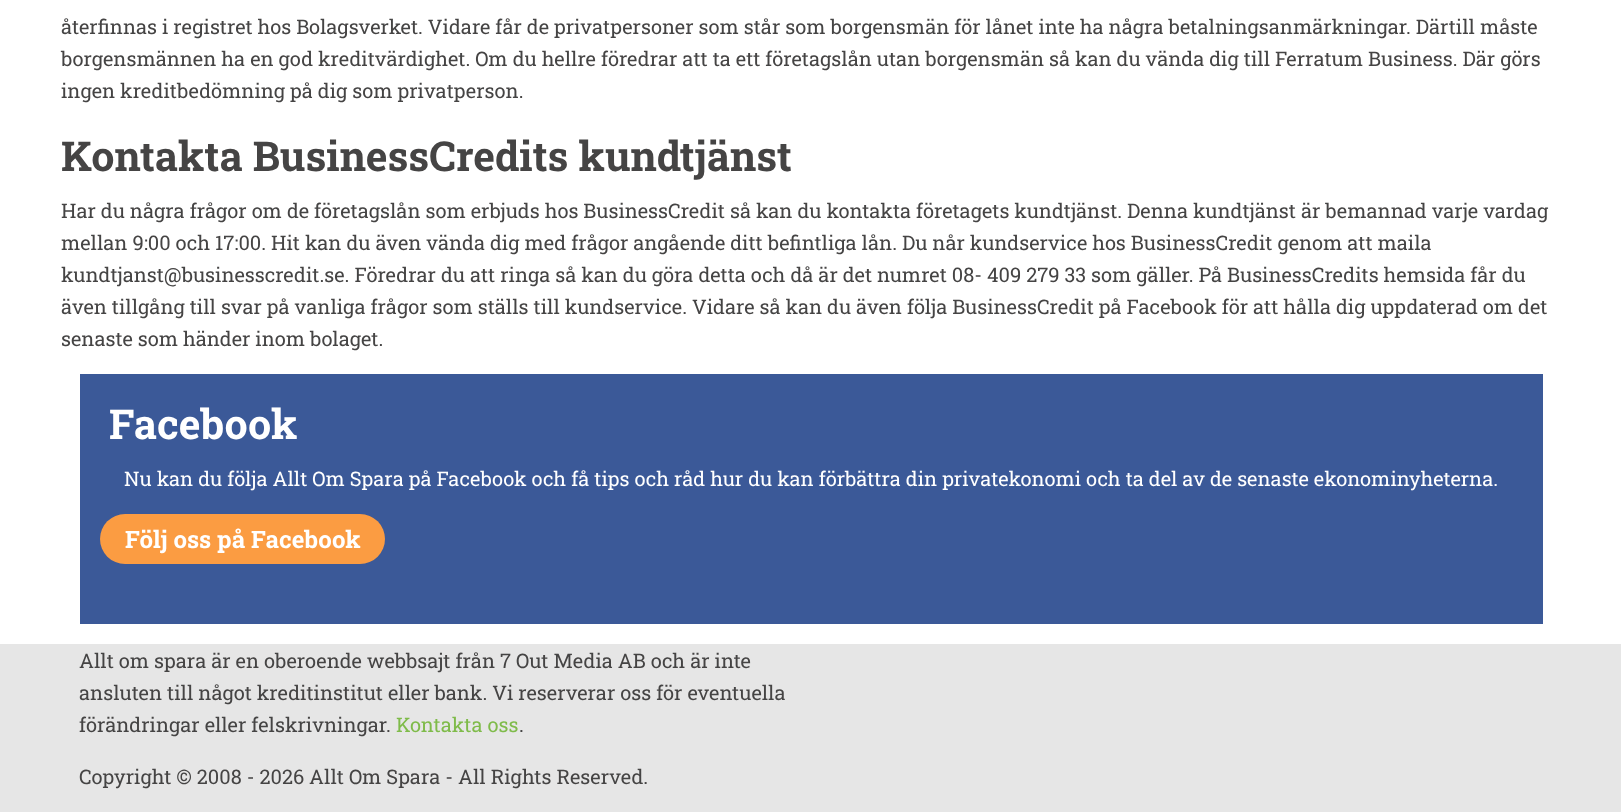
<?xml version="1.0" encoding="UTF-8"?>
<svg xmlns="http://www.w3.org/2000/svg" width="1621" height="812">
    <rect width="100%" height="100%" fill="#FFFFFF"/>
    <text font-family="Roboto Slab" font-size="20" fill="#454444">
        <tspan x="61" y="34">återfinnas i registret hos Bolagsverket. Vidare får de privatpersoner som står som borgensmän för lånet inte ha några betalningsanmärkningar. Därtill måste</tspan>
        <tspan x="61" y="66">borgensmännen ha en god kreditvärdighet. Om du hellre föredrar att ta ett företagslån utan borgensmän så kan du vända dig till Ferratum Business. Där görs</tspan>
        <tspan x="61" y="98">ingen kreditbedömning på dig som privatperson.</tspan>
    </text>
    <text x="61" y="171" font-family="Roboto Slab" font-size="41.25" font-weight="700" fill="#454444">Kontakta BusinessCredits kundtjänst</text>
    <text font-family="Roboto Slab" font-size="20" fill="#454444">
        <tspan x="61" y="218">Har du några frågor om de företagslån som erbjuds hos BusinessCredit så kan du kontakta företagets kundtjänst. Denna kundtjänst är bemannad varje vardag</tspan>
        <tspan x="61" y="250">mellan 9:00 och 17:00. Hit kan du även vända dig med frågor angående ditt befintliga lån. Du når kundservice hos BusinessCredit genom att maila</tspan>
        <tspan x="61" y="282">kundtjanst@businesscredit.se. Föredrar du att ringa så kan du göra detta och då är det numret 08- 409 279 33 som gäller. På BusinessCredits hemsida får du</tspan>
        <tspan x="61" y="314">även tillgång till svar på vanliga frågor som ställs till kundservice. Vidare så kan du även följa BusinessCredit på Facebook för att hålla dig uppdaterad om det</tspan>
        <tspan x="61" y="346">senaste som händer inom bolaget.</tspan>
    </text>
    <rect x="80" y="374" width="1463" height="250" fill="#3B5998"/>
    <text x="109" y="439" font-family="Roboto Slab" font-size="41.25" font-weight="700" fill="#FFFFFF">Facebook</text>
    <text x="124" y="486" font-family="Roboto Slab" font-size="20" fill="#FFFFFF">Nu kan du följa Allt Om Spara på Facebook och få tips och råd hur du kan förbättra din privatekonomi och ta del av de senaste ekonominyheterna.</text>
    <rect x="100" y="514" width="285" height="50" rx="25" fill="#FB9C42"/>
    <text x="125" y="548" font-family="Roboto Slab" font-size="24" font-weight="700" fill="#FFFFFF">Följ oss på Facebook</text>
    <rect x="0" y="644" width="1621" height="168" fill="#E6E6E6"/>
    <text font-family="Roboto Slab" font-size="20" fill="#454444">
        <tspan x="79" y="668">Allt om spara är en oberoende webbsajt från 7 Out Media AB och är inte</tspan>
        <tspan x="79" y="700">ansluten till något kreditinstitut eller bank. Vi reserverar oss för eventuella</tspan>
        <tspan x="79" y="732">förändringar eller felskrivningar.</tspan>
    </text>
    <text x="396" y="732" font-family="Roboto Slab" font-size="20" fill="#7FBB4A">Kontakta oss</text>
    <text x="519" y="732" font-family="Roboto Slab" font-size="20" fill="#454444">.</text>
    <text x="79" y="784" font-family="Roboto Slab" font-size="20" fill="#454444">Copyright © 2008 - 2026 Allt Om Spara - All Rights Reserved.</text>
</svg>
